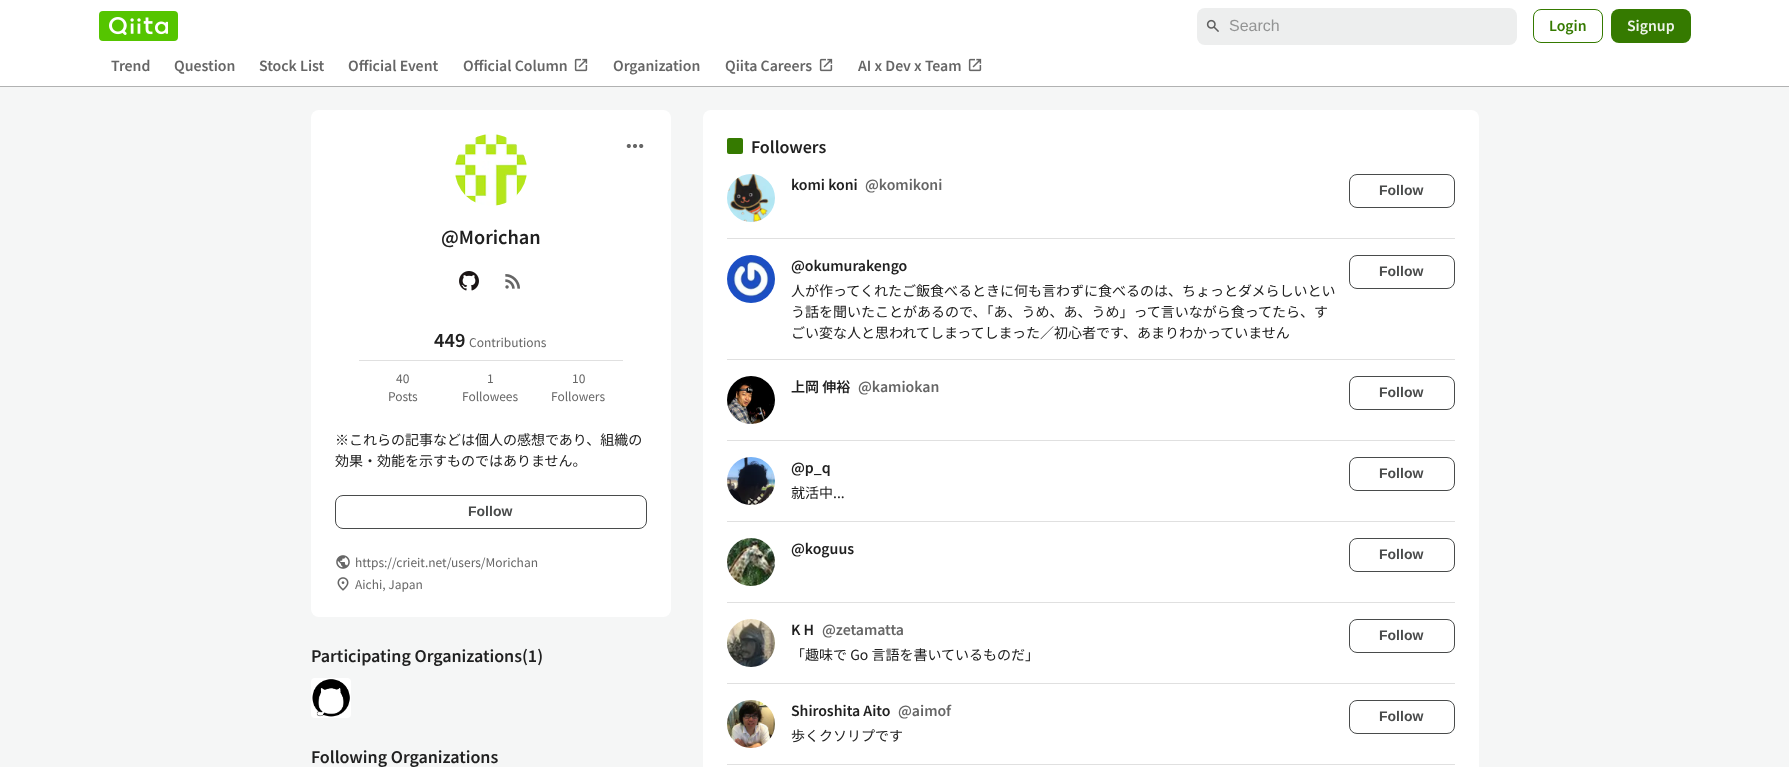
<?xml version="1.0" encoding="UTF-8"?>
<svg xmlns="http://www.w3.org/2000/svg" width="1789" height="767">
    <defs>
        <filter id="blur1" x="-50%" y="-200%" width="200%" height="500%"><feGaussianBlur stdDeviation="0.5"/></filter>
    </defs>
    <rect width="100%" height="100%" fill="#F5F6F6"/>
    <rect x="-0.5" y="-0.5" width="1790" height="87" fill="none" stroke="#E1E2E2"/>
    <rect x="0" y="1" width="1789" height="86" fill="#1E2121" fill-opacity="0.25" filter="url(#blur1)"/>
    <rect x="0" y="0" width="1789" height="86" fill="#FFFFFF"/>
    <rect x="99" y="11" width="79" height="30" rx="4" fill="#55C500"/>
    <image x="109" y="17" width="59" height="18" href="img_01.png"/>
    <rect x="1197" y="8" width="320" height="37" rx="8" fill="#EDEEEE"/>
    <image x="1206" y="19" width="13" height="13" href="img_02.png"/>
    <text x="1229" y="31" font-family="Liberation Sans" font-size="16" fill="#939494">Search</text>
    <rect x="1533.5" y="9.5" width="69" height="33" rx="7.5" fill="none" stroke="#357A00"/>
    <text x="1549" y="31" font-family="Noto Sans JP" font-size="14" font-weight="600" fill="#357A00">Login</text>
    <rect x="1611" y="9" width="80" height="34" rx="8" fill="#357A00"/>
    <text x="1627" y="31" font-family="Noto Sans JP" font-size="14" font-weight="600" fill="#EFF4EB">Signup</text>
    <text x="111" y="71" font-family="Noto Sans JP" font-size="14" font-weight="600" fill="#666666">Trend</text>
    <text x="174" y="71" font-family="Noto Sans JP" font-size="14" font-weight="600" fill="#666666">Question</text>
    <text x="259" y="71" font-family="Noto Sans JP" font-size="14" font-weight="600" fill="#666666">Stock List</text>
    <text x="348" y="71" font-family="Noto Sans JP" font-size="14" font-weight="600" fill="#666666">Official Event</text>
    <text x="463" y="71" font-family="Noto Sans JP" font-size="14" font-weight="600" fill="#666666">Official Column</text>
    <image x="574" y="58" width="14" height="14" href="img_03.png"/>
    <text x="613" y="71" font-family="Noto Sans JP" font-size="14" font-weight="600" fill="#666666">Organization</text>
    <text x="725" y="71" font-family="Noto Sans JP" font-size="14" font-weight="600" fill="#666666">Qiita Careers</text>
    <image x="819" y="58" width="14" height="14" href="img_03.png"/>
    <text x="858" y="71" font-family="Noto Sans JP" font-size="14" font-weight="600" fill="#666666">AI x Dev x Team</text>
    <image x="968" y="58" width="14" height="14" href="img_03.png"/>
    <rect x="311" y="110" width="360" height="507" rx="8" fill="#FFFFFF"/>
    <image x="626" y="144" width="18" height="4" href="img_04.png"/>
    <image x="455" y="134" width="72" height="72" href="img_05.png"/>
    <text x="441" y="244" font-family="Noto Sans JP" font-size="18" font-weight="600" fill="#202020">@Morichan</text>
    <image x="459" y="271" width="20" height="20" href="img_06.png"/>
    <image x="505" y="274" width="15" height="15" href="img_07.png"/>
    <text x="434" y="347" font-family="Noto Sans JP" font-size="18" font-weight="600" fill="#202020">449</text>
    <text x="469" y="347" font-family="Noto Sans JP" font-size="12" fill="#666666">Contributions</text>
    <rect x="359" y="360" width="264" height="1" fill="#E0E0E0"/>
    <text x="396" y="383" font-family="Noto Sans JP" font-size="12" fill="#666666">40</text>
    <text x="388" y="401" font-family="Noto Sans JP" font-size="12" fill="#666666">Posts</text>
    <text x="487" y="383" font-family="Noto Sans JP" font-size="12" fill="#666666">1</text>
    <text x="462" y="401" font-family="Noto Sans JP" font-size="12" fill="#666666">Followees</text>
    <text x="572" y="383" font-family="Noto Sans JP" font-size="12" fill="#666666">10</text>
    <text x="551" y="401" font-family="Noto Sans JP" font-size="12" fill="#666666">Followers</text>
    <text font-family="Noto Sans JP" font-size="14" fill="#202020">
        <tspan x="335" y="445">※これらの記事などは個人の感想であり、組織の</tspan>
        <tspan x="335" y="466">効果・効能を示すものではありません。</tspan>
    </text>
    <rect x="335.5" y="495.5" width="311" height="33" rx="7.5" fill="none" stroke="#494B4B"/>
    <text x="468" y="516" font-family="Liberation Sans" font-size="14" font-weight="700" fill="#494B4B">Follow</text>
    <image x="336" y="555" width="14" height="14" href="img_08.png"/>
    <text x="355" y="567" font-family="Noto Sans JP" font-size="12" fill="#666666">https://crieit.net/users/Morichan</text>
    <image x="337" y="577" width="12" height="14" href="img_09.png"/>
    <text x="355" y="589" font-family="Noto Sans JP" font-size="12" fill="#666666">Aichi, Japan</text>
    <text x="311" y="662" font-family="Noto Sans JP" font-size="16" font-weight="600" fill="#202020">Participating Organizations(1)</text>
    <rect x="311" y="678" width="40" height="40" rx="4" fill="#FFFFFF"/>
    <image x="312" y="679" width="38" height="38" href="img_10.png"/>
    <text x="311" y="763" font-family="Noto Sans JP" font-size="16" font-weight="600" fill="#202020">Following Organizations</text>
    <rect x="703" y="110" width="776" height="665" rx="8" fill="#FFFFFF"/>
    <rect x="727" y="138" width="16" height="16" rx="2" fill="#357A00"/>
    <text x="751" y="153" font-family="Noto Sans JP" font-size="16" font-weight="600" fill="#202020">Followers</text>
    <image x="727" y="174" width="48" height="48" href="img_11.png"/>
    <text x="791" y="190" font-family="Noto Sans JP" font-size="14" font-weight="600" fill="#202020">komi koni</text>
    <text x="865" y="190" font-family="Noto Sans JP" font-size="14" font-weight="600" fill="#666666">@komikoni</text>
    <rect x="1349.5" y="174.5" width="105" height="33" rx="7.5" fill="none" stroke="#494B4B"/>
    <text x="1379" y="195" font-family="Liberation Sans" font-size="14" font-weight="700" fill="#494B4B">Follow</text>
    <rect x="727" y="238" width="728" height="1" fill="#E0E0E0"/>
    <image x="727" y="255" width="48" height="48" href="img_12.png"/>
    <text x="791" y="271" font-family="Noto Sans JP" font-size="14" font-weight="600" fill="#202020">@okumurakengo</text>
    <text font-family="Noto Sans JP" font-size="14" fill="#202020">
        <tspan x="791" y="296">人が作ってくれたご飯食べるときに何も言わずに食べるのは、ちょっとダメらしいとい</tspan>
        <tspan x="791" y="317">う話を聞いたことがあるので、「あ、うめ、あ、うめ」って言いながら食ってたら、す</tspan>
        <tspan x="791" y="338">ごい変な人と思われてしまってしまった／初心者です、あまりわかっていません</tspan>
    </text>
    <rect x="1349.5" y="255.5" width="105" height="33" rx="7.5" fill="none" stroke="#494B4B"/>
    <text x="1379" y="276" font-family="Liberation Sans" font-size="14" font-weight="700" fill="#494B4B">Follow</text>
    <rect x="727" y="359" width="728" height="1" fill="#E0E0E0"/>
    <image x="727" y="376" width="48" height="48" href="img_13.png"/>
    <text x="791" y="392" font-family="Noto Sans JP" font-size="14" font-weight="600" fill="#202020">上岡 伸裕</text>
    <text x="858" y="392" font-family="Noto Sans JP" font-size="14" font-weight="600" fill="#666666">@kamiokan</text>
    <rect x="1349.5" y="376.5" width="105" height="33" rx="7.5" fill="none" stroke="#494B4B"/>
    <text x="1379" y="397" font-family="Liberation Sans" font-size="14" font-weight="700" fill="#494B4B">Follow</text>
    <rect x="727" y="440" width="728" height="1" fill="#E0E0E0"/>
    <image x="727" y="457" width="48" height="48" href="img_14.png"/>
    <text x="791" y="473" font-family="Noto Sans JP" font-size="14" font-weight="600" fill="#202020">@p_q</text>
    <text x="791" y="498" font-family="Noto Sans JP" font-size="14" fill="#202020">就活中...</text>
    <rect x="1349.5" y="457.5" width="105" height="33" rx="7.5" fill="none" stroke="#494B4B"/>
    <text x="1379" y="478" font-family="Liberation Sans" font-size="14" font-weight="700" fill="#494B4B">Follow</text>
    <rect x="727" y="521" width="728" height="1" fill="#E0E0E0"/>
    <image x="727" y="538" width="48" height="48" href="img_15.png"/>
    <text x="791" y="554" font-family="Noto Sans JP" font-size="14" font-weight="600" fill="#202020">@koguus</text>
    <rect x="1349.5" y="538.5" width="105" height="33" rx="7.5" fill="none" stroke="#494B4B"/>
    <text x="1379" y="559" font-family="Liberation Sans" font-size="14" font-weight="700" fill="#494B4B">Follow</text>
    <rect x="727" y="602" width="728" height="1" fill="#E0E0E0"/>
    <image x="727" y="619" width="48" height="48" href="img_16.png"/>
    <text x="791" y="635" font-family="Noto Sans JP" font-size="14" font-weight="600" fill="#202020">K H</text>
    <text x="822" y="635" font-family="Noto Sans JP" font-size="14" font-weight="600" fill="#666666">@zetamatta</text>
    <text x="791" y="660" font-family="Noto Sans JP" font-size="14" fill="#202020">「趣味で Go 言語を書いているものだ」</text>
    <rect x="1349.5" y="619.5" width="105" height="33" rx="7.5" fill="none" stroke="#494B4B"/>
    <text x="1379" y="640" font-family="Liberation Sans" font-size="14" font-weight="700" fill="#494B4B">Follow</text>
    <rect x="727" y="683" width="728" height="1" fill="#E0E0E0"/>
    <image x="727" y="700" width="48" height="48" href="img_17.png"/>
    <text x="791" y="716" font-family="Noto Sans JP" font-size="14" font-weight="600" fill="#202020">Shiroshita Aito</text>
    <text x="898" y="716" font-family="Noto Sans JP" font-size="14" font-weight="600" fill="#666666">@aimof</text>
    <text x="791" y="741" font-family="Noto Sans JP" font-size="14" fill="#202020">歩くクソリプです</text>
    <rect x="1349.5" y="700.5" width="105" height="33" rx="7.5" fill="none" stroke="#494B4B"/>
    <text x="1379" y="721" font-family="Liberation Sans" font-size="14" font-weight="700" fill="#494B4B">Follow</text>
    <rect x="727" y="764" width="728" height="1" fill="#E0E0E0"/>
</svg>
